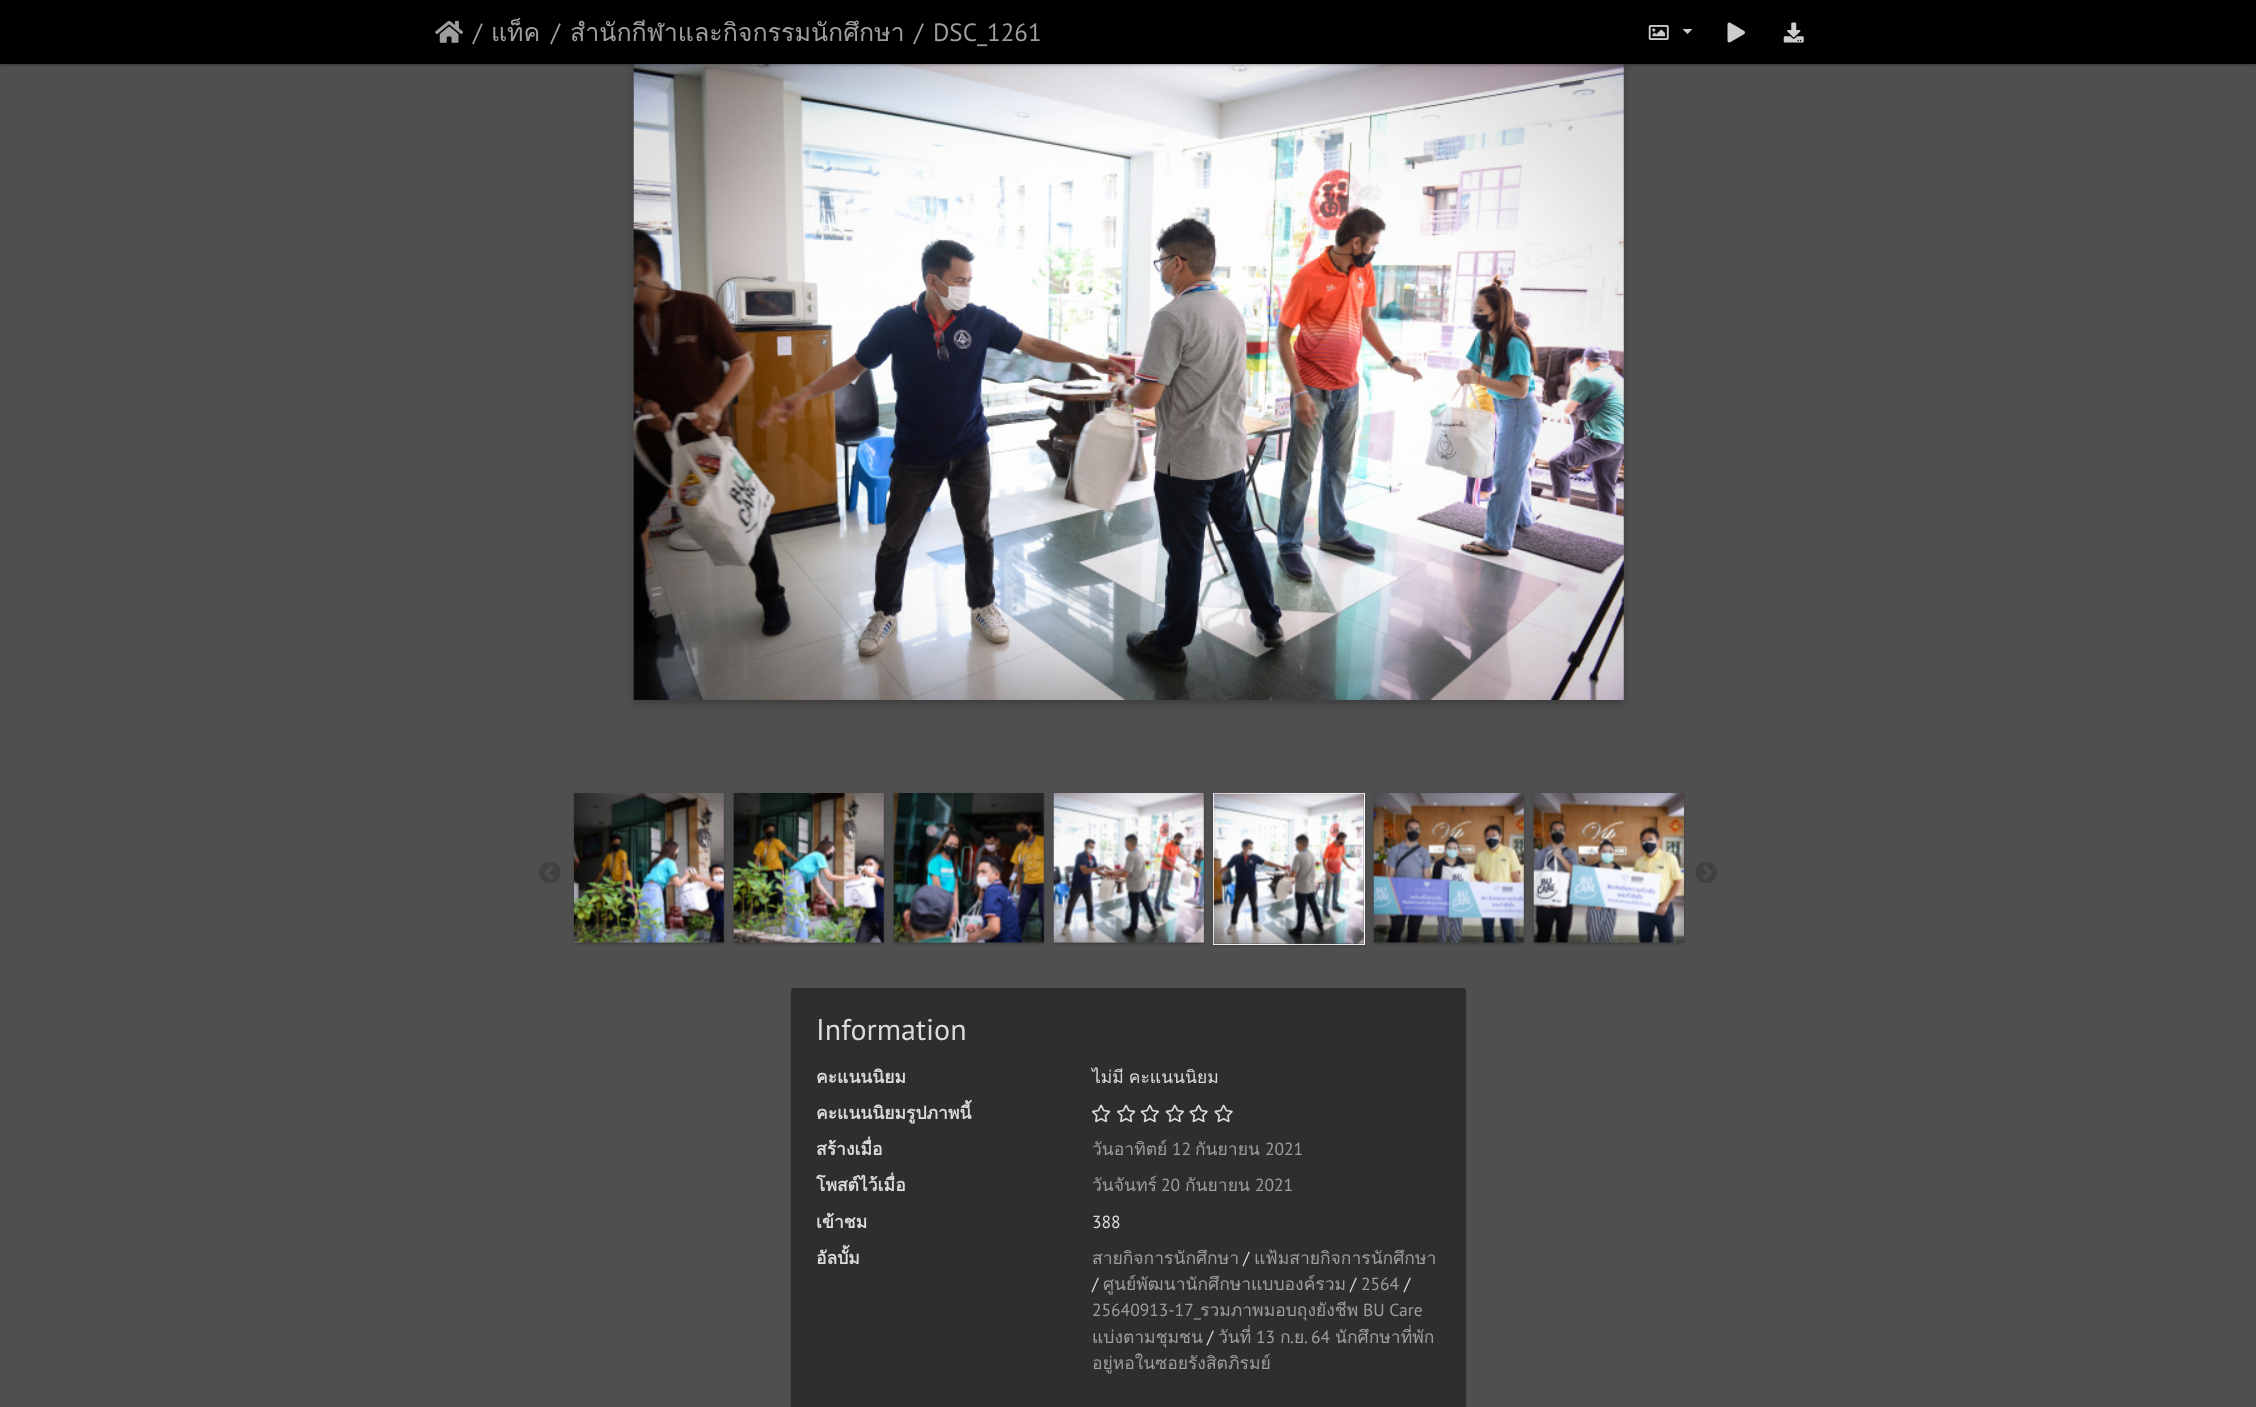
<?xml version="1.0" encoding="UTF-8"?>
<svg xmlns="http://www.w3.org/2000/svg" width="2256" height="1407">
    <defs>
        <filter id="blur1" x="-50%" y="-200%" width="200%" height="500%"><feGaussianBlur stdDeviation="4"/></filter>
        <filter id="blur2" x="-50%" y="-200%" width="200%" height="500%"><feGaussianBlur stdDeviation="1"/></filter>
        <filter id="blur3" x="-50%" y="-200%" width="200%" height="500%"><feGaussianBlur stdDeviation="2"/></filter>
        <clipPath id="clip1"><path d="M 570 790 H 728 V 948 H 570 Z M 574 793 H 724 V 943 H 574 Z" clip-rule="evenodd"/></clipPath>
        <clipPath id="clip2"><path d="M 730 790 H 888 V 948 H 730 Z M 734 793 H 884 V 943 H 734 Z" clip-rule="evenodd"/></clipPath>
        <clipPath id="clip3"><path d="M 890 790 H 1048 V 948 H 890 Z M 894 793 H 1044 V 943 H 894 Z" clip-rule="evenodd"/></clipPath>
        <clipPath id="clip4"><path d="M 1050 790 H 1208 V 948 H 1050 Z M 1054 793 H 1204 V 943 H 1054 Z" clip-rule="evenodd"/></clipPath>
        <clipPath id="clip5"><path d="M 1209 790 H 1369 V 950 H 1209 Z M 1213 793 H 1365 V 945 H 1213 Z" clip-rule="evenodd"/></clipPath>
        <clipPath id="clip6"><path d="M 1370 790 H 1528 V 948 H 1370 Z M 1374 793 H 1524 V 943 H 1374 Z" clip-rule="evenodd"/></clipPath>
        <clipPath id="clip7"><path d="M 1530 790 H 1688 V 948 H 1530 Z M 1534 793 H 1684 V 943 H 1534 Z" clip-rule="evenodd"/></clipPath>
    </defs>
    <rect width="100%" height="100%" fill="#4F4F4F"/>
    <rect x="634" y="44" width="990" height="660" fill="#000000" fill-opacity="0.23" filter="url(#blur1)"/>
    <image x="633" y="64" width="991" height="636" href="img_05.png"/>
    <rect x="0" y="1" width="2256" height="64" fill="#000000" fill-opacity="0.24" filter="url(#blur2)"/>
    <rect x="0" y="1" width="2256" height="64" fill="#000000" fill-opacity="0.12" filter="url(#blur3)"/>
    <rect x="0" y="0" width="2256" height="64" fill="#000000"/>
    <image x="435" y="20" width="28" height="23" href="img_01.png"/>
    <text x="473" y="41" font-family="PT Sans" font-size="25" fill="#9E9E9E">/</text>
    <text x="491" y="41" font-family="Loma" font-size="25" fill="#9E9E9E">แท็ค</text>
    <text x="551" y="41" font-family="PT Sans" font-size="25" fill="#9E9E9E">/</text>
    <text x="570" y="41" font-family="Loma" font-size="25" fill="#9E9E9E">สำนักกีฬาและกิจกรรมนักศึกษา</text>
    <text x="914" y="41" font-family="PT Sans" font-size="25" fill="#9E9E9E">/</text>
    <text x="933" y="41" font-family="PT Sans" font-size="25" fill="#9E9E9E">DSC_1261</text>
    <image x="1648" y="25" width="21" height="15" href="img_02.png"/>
    <path d="M 1682.5 29 H 1692.5 L 1687.5 34 Z" fill="#CCCCCC"/>
    <image x="1727" y="22" width="18" height="21" href="img_03.png"/>
    <image x="1783" y="22" width="21" height="21" href="img_04.png"/>
    <image x="539" y="862" width="22" height="21" href="img_06.png"/>
    <g clip-path="url(#clip1)">
        <rect x="574" y="794" width="150" height="150" fill="#000000" fill-opacity="0.24" filter="url(#blur2)"/>
    </g>
    <image x="574" y="793" width="150" height="150" href="img_07.png"/>
    <g clip-path="url(#clip2)">
        <rect x="734" y="794" width="150" height="150" fill="#000000" fill-opacity="0.24" filter="url(#blur2)"/>
    </g>
    <image x="733" y="793" width="151" height="150" href="img_08.png"/>
    <g clip-path="url(#clip3)">
        <rect x="894" y="794" width="150" height="150" fill="#000000" fill-opacity="0.24" filter="url(#blur2)"/>
    </g>
    <image x="893" y="793" width="151" height="150" href="img_09.png"/>
    <g clip-path="url(#clip4)">
        <rect x="1054" y="794" width="150" height="150" fill="#000000" fill-opacity="0.24" filter="url(#blur2)"/>
    </g>
    <image x="1053" y="793" width="151" height="150" href="img_10.png"/>
    <g clip-path="url(#clip5)">
        <rect x="1213" y="794" width="152" height="152" fill="#000000" fill-opacity="0.24" filter="url(#blur2)"/>
    </g>
    <rect x="1213.5" y="793.5" width="151" height="151" fill="none" stroke="#FFFFFF"/>
    <image x="1213" y="793" width="151" height="152" href="img_11.png"/>
    <g clip-path="url(#clip6)">
        <rect x="1374" y="794" width="150" height="150" fill="#000000" fill-opacity="0.24" filter="url(#blur2)"/>
    </g>
    <image x="1373" y="793" width="151" height="150" href="img_12.png"/>
    <g clip-path="url(#clip7)">
        <rect x="1534" y="794" width="150" height="150" fill="#000000" fill-opacity="0.24" filter="url(#blur2)"/>
    </g>
    <image x="1533" y="793" width="151" height="150" href="img_13.png"/>
    <image x="1695" y="862" width="22" height="21" href="img_14.png"/>
    <rect x="791" y="990" width="675" height="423" rx="2.5" fill="#000000" fill-opacity="0.14" filter="url(#blur2)"/>
    <rect x="791" y="988" width="675" height="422" rx="2.5" fill="#2E2E2E"/>
    <text x="816" y="1040" font-family="PT Sans" font-size="30" fill="#DBDBDB">Information</text>
    <text x="816" y="1083" font-family="Loma" font-size="17.5" font-weight="700" fill="#DBDBDB">คะแนนนิยม</text>
    <text x="1092" y="1083" word-spacing="-1" font-family="Loma" font-size="17.5" fill="#DBDBDB">ไม่มี คะแนนนิยม</text>
    <text x="816" y="1119" font-family="Loma" font-size="17.5" font-weight="700" fill="#DBDBDB">คะแนนนิยมรูปภาพนี้</text>
    <image x="1092" y="1104" width="19" height="19" href="img_15.png"/>
    <image x="1117" y="1104" width="19" height="19" href="img_15.png"/>
    <image x="1140" y="1104" width="19" height="19" href="img_16.png"/>
    <image x="1165" y="1104" width="19" height="19" href="img_16.png"/>
    <image x="1189" y="1104" width="19" height="19" href="img_17.png"/>
    <image x="1214" y="1104" width="19" height="19" href="img_17.png"/>
    <text x="816" y="1155" font-family="Loma" font-size="17.5" font-weight="700" fill="#DBDBDB">สร้างเมื่อ</text>
    <text x="1092" y="1155" font-family="Loma" font-size="17.5" fill="#9E9E9E">วันอาทิตย์</text>
    <text x="1172" y="1155" font-family="PT Sans" font-size="17.5" fill="#9E9E9E">12</text>
    <text x="1195" y="1155" font-family="Loma" font-size="17.5" fill="#9E9E9E">กันยายน</text>
    <text x="1265" y="1155" font-family="PT Sans" font-size="17.5" fill="#9E9E9E">2021</text>
    <text x="816" y="1191" font-family="Loma" font-size="17.5" font-weight="700" fill="#DBDBDB">โพสต์ไว้เมื่อ</text>
    <text x="1092" y="1191" font-family="Loma" font-size="17.5" fill="#9E9E9E">วันจันทร์</text>
    <text x="1161" y="1191" font-family="PT Sans" font-size="17.5" fill="#9E9E9E">20</text>
    <text x="1185" y="1191" font-family="Loma" font-size="17.5" fill="#9E9E9E">กันยายน</text>
    <text x="1255" y="1191" font-family="PT Sans" font-size="17.5" fill="#9E9E9E">2021</text>
    <text x="816" y="1228" font-family="Loma" font-size="17.5" font-weight="700" fill="#DBDBDB">เข้าชม</text>
    <text x="1092" y="1228" font-family="PT Sans" font-size="17.5" fill="#DBDBDB">388</text>
    <text x="816" y="1264" font-family="Loma" font-size="17.5" font-weight="700" fill="#DBDBDB">อัลบั้ม</text>
    <text x="1092" y="1264" font-family="Loma" font-size="17.5" fill="#9E9E9E">สายกิจการนักศึกษา</text>
    <text x="1243" y="1264" font-family="PT Sans" font-size="17.5" fill="#DBDBDB">/</text>
    <text x="1254" y="1264" font-family="Loma" font-size="17.5" fill="#9E9E9E">แฟ้มสายกิจการนักศึกษา</text>
    <text x="1092" y="1290" font-family="PT Sans" font-size="17.5" fill="#DBDBDB">/</text>
    <text x="1103" y="1290" font-family="Loma" font-size="17.5" fill="#9E9E9E">ศูนย์พัฒนานักศึกษาแบบองค์รวม</text>
    <text x="1350" y="1290" font-family="PT Sans" font-size="17.5" fill="#DBDBDB">/</text>
    <text x="1361" y="1290" font-family="PT Sans" font-size="17.5" fill="#9E9E9E">2564</text>
    <text x="1404" y="1290" font-family="PT Sans" font-size="17.5" fill="#DBDBDB">/</text>
    <text x="1092" y="1316" font-family="PT Sans" font-size="17.5" fill="#9E9E9E">25640913-17_</text>
    <text x="1200" y="1316" font-family="Loma" font-size="17.5" fill="#9E9E9E">รวมภาพมอบถุงยังชีพ</text>
    <text x="1363" y="1316" font-family="PT Sans" font-size="17.5" fill="#9E9E9E">BU Care</text>
    <text x="1092" y="1343" font-family="Loma" font-size="17.5" fill="#9E9E9E">แบ่งตามชุมชน</text>
    <text x="1207" y="1343" font-family="PT Sans" font-size="17.5" fill="#DBDBDB">/</text>
    <text x="1218" y="1343" font-family="Loma" font-size="17.5" fill="#9E9E9E">วันที่</text>
    <text x="1256" y="1343" font-family="PT Sans" font-size="17.5" fill="#9E9E9E">13</text>
    <text x="1280" y="1343" font-family="Loma" font-size="17.5" fill="#9E9E9E">ก</text>
    <text x="1290" y="1343" font-family="PT Sans" font-size="17.5" fill="#9E9E9E">.</text>
    <text x="1294" y="1343" font-family="Loma" font-size="17.5" fill="#9E9E9E">ย</text>
    <text x="1304" y="1343" font-family="PT Sans" font-size="17.5" fill="#9E9E9E">. 64</text>
    <text x="1335" y="1343" font-family="Loma" font-size="17.5" fill="#9E9E9E">นักศึกษาที่พัก</text>
    <text x="1092" y="1369" font-family="Loma" font-size="17.5" fill="#9E9E9E">อยู่หอในซอยรังสิตภิรมย์</text>
</svg>
